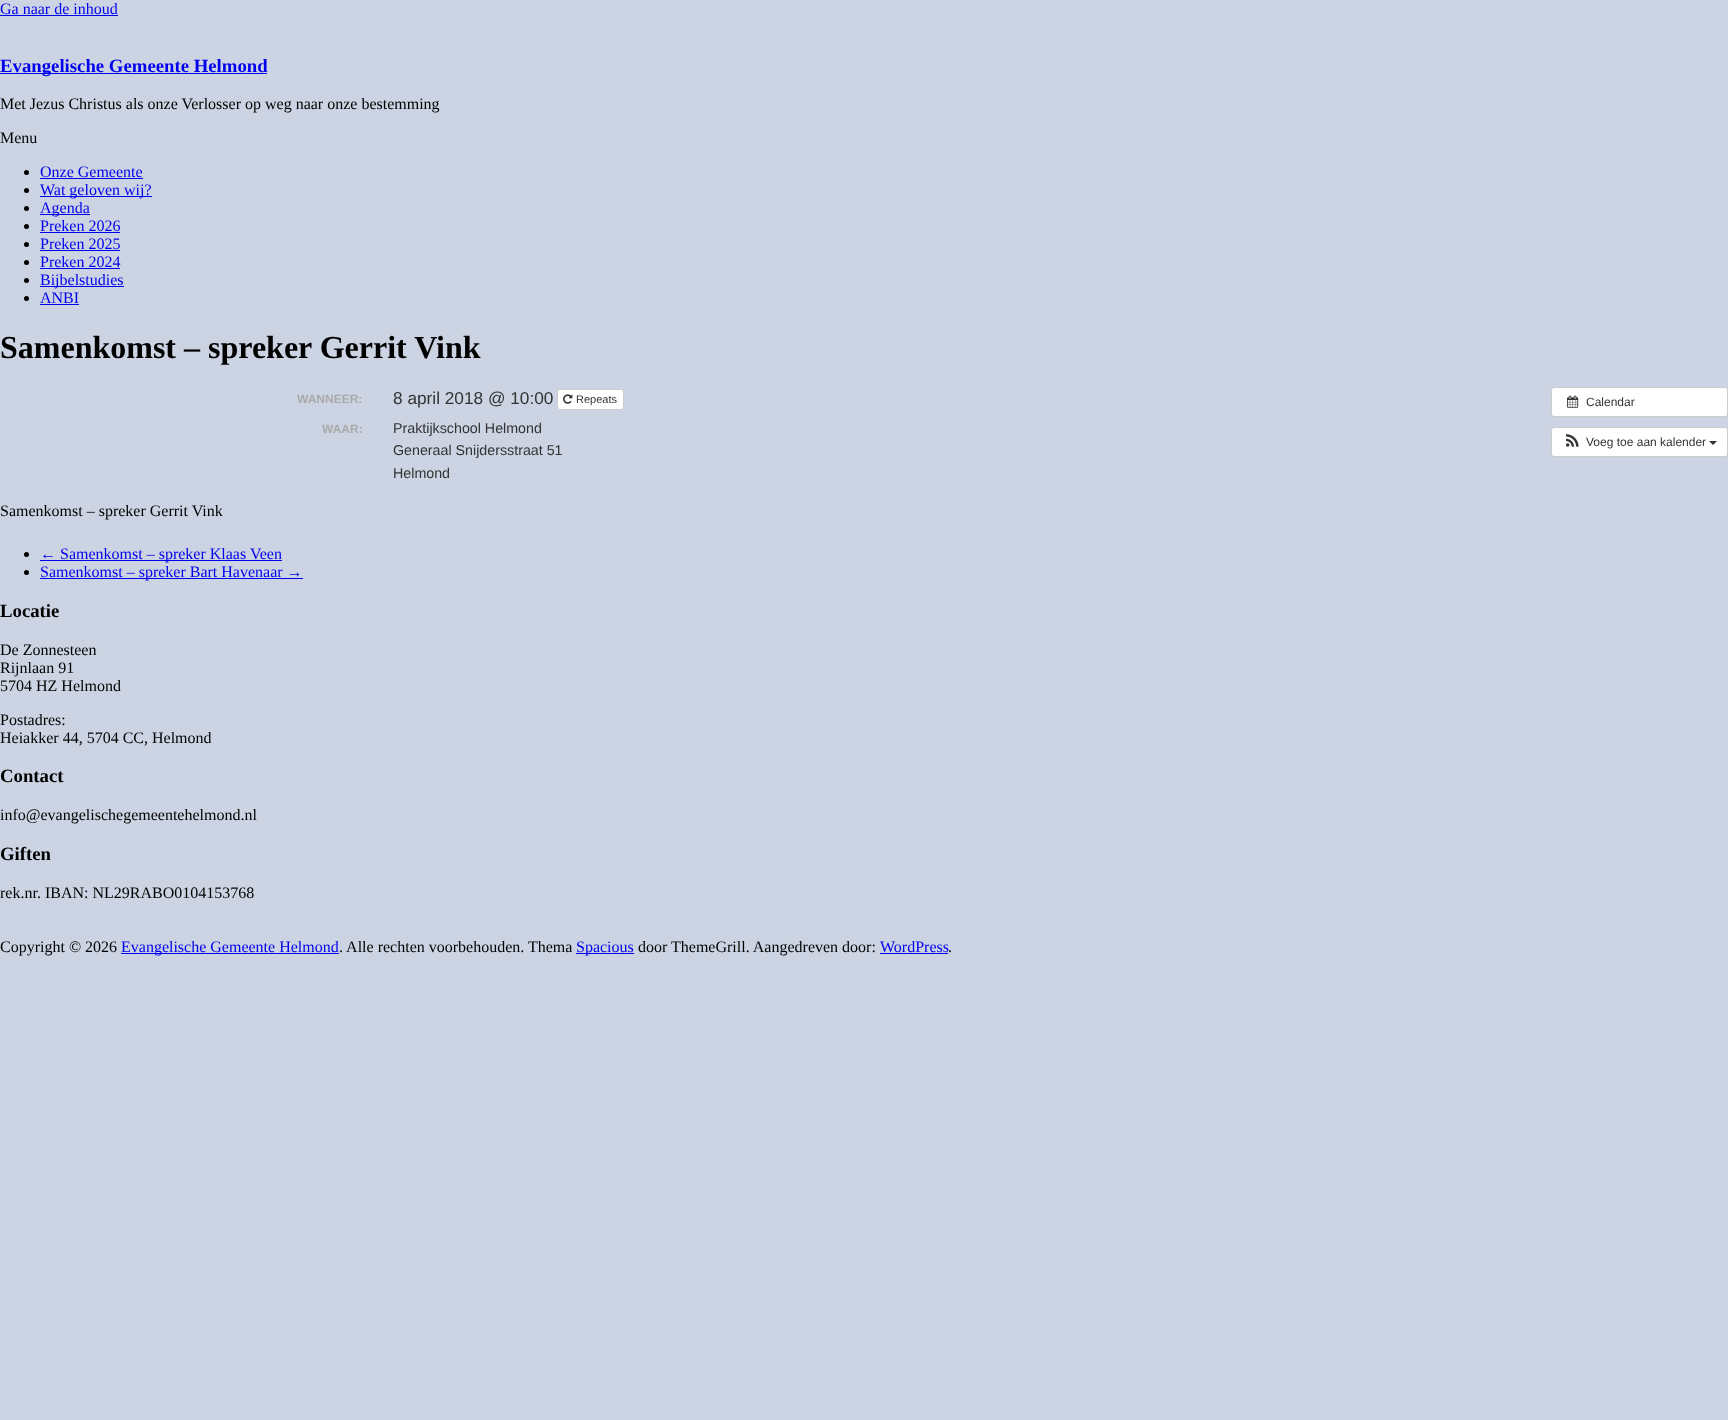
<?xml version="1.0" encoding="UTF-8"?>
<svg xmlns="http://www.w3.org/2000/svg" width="1728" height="1420">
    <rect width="100%" height="100%" fill="#CCD3E2"/>
    <text x="0" y="14" font-family="Liberation Serif" font-size="16" fill="#0000EE">Ga naar de inhoud</text>
    <rect x="0" y="15" width="118" height="1" fill="#0000EE"/>
    <rect x="0" y="73" width="267" height="1" fill="#0000EE"/>
    <text x="0" y="72" font-family="Liberation Serif" font-size="18.75" font-weight="700" fill="#0000EE">Evangelische Gemeente Helmond</text>
    <text x="0" y="109" font-family="Liberation Serif" font-size="16" fill="#000000">Met Jezus Christus als onze Verlosser op weg naar onze bestemming</text>
    <text x="0" y="143" font-family="Liberation Serif" font-size="16" fill="#000000">Menu</text>
    <circle cx="26.5" cy="172.5" r="2.5" fill="#000000"/>
    <text x="40" y="177" font-family="Liberation Serif" font-size="16" fill="#0000EE">Onze Gemeente</text>
    <rect x="40" y="178" width="103" height="1" fill="#0000EE"/>
    <circle cx="26.5" cy="190.5" r="2.5" fill="#000000"/>
    <rect x="40" y="196" width="112" height="1" fill="#0000EE"/>
    <text x="40" y="195" font-family="Liberation Serif" font-size="16" fill="#0000EE">Wat geloven wij?</text>
    <circle cx="26.5" cy="208.5" r="2.5" fill="#000000"/>
    <rect x="40" y="214" width="50" height="1" fill="#0000EE"/>
    <text x="40" y="213" font-family="Liberation Serif" font-size="16" fill="#0000EE">Agenda</text>
    <circle cx="26.5" cy="226.5" r="2.5" fill="#000000"/>
    <text x="40" y="231" font-family="Liberation Serif" font-size="16" fill="#0000EE">Preken 2026</text>
    <rect x="40" y="232" width="80" height="1" fill="#0000EE"/>
    <circle cx="26.5" cy="244.5" r="2.5" fill="#000000"/>
    <text x="40" y="249" font-family="Liberation Serif" font-size="16" fill="#0000EE">Preken 2025</text>
    <rect x="40" y="250" width="80" height="1" fill="#0000EE"/>
    <circle cx="26.5" cy="262.5" r="2.5" fill="#000000"/>
    <text x="40" y="267" font-family="Liberation Serif" font-size="16" fill="#0000EE">Preken 2024</text>
    <rect x="40" y="268" width="80" height="1" fill="#0000EE"/>
    <circle cx="26.5" cy="280.5" r="2.5" fill="#000000"/>
    <rect x="40" y="286" width="84" height="1" fill="#0000EE"/>
    <text x="40" y="285" font-family="Liberation Serif" font-size="16" fill="#0000EE">Bijbelstudies</text>
    <circle cx="26.5" cy="298.5" r="2.5" fill="#000000"/>
    <text x="40" y="303" font-family="Liberation Serif" font-size="16" fill="#0000EE">ANBI</text>
    <rect x="40" y="304" width="39" height="1" fill="#0000EE"/>
    <text x="0" y="358" font-family="Liberation Serif" font-size="32" font-weight="700" fill="#000000">Samenkomst – spreker Gerrit Vink</text>
    <text x="297" y="403" font-family="Liberation Sans" font-size="12" font-weight="700" fill="#AAAAAA">WANNEER:</text>
    <text x="393" y="404" font-family="Liberation Sans" font-size="17.25" fill="#333333">8 april 2018 @ 10:00</text>
    <rect x="557.5" y="389.5" width="66" height="20" rx="2.5" fill="#FFFFFF" stroke="#CCCCCC"/>
    <image x="563" y="394" width="10" height="10" href="img_01.png"/>
    <text x="576" y="403" font-family="Liberation Sans" font-size="11" fill="#333333">Repeats</text>
    <text x="322" y="433" font-family="Liberation Sans" font-size="12" font-weight="700" fill="#AAAAAA">WAAR:</text>
    <text font-family="Liberation Sans" font-size="14.25" fill="#333333">
        <tspan x="393" y="433">Praktijkschool Helmond</tspan>
        <tspan x="393" y="455">Generaal Snijdersstraat 51</tspan>
        <tspan x="393" y="478">Helmond</tspan>
    </text>
    <rect x="1551.5" y="387.5" width="176" height="29" rx="2.5" fill="#FFFFFF" stroke="#CCCCCC"/>
    <image x="1567" y="395" width="12" height="13" href="img_02.png"/>
    <text x="1586" y="406" font-family="Liberation Sans" font-size="12" fill="#333333">Calendar</text>
    <rect x="1551.5" y="427.5" width="176" height="29" rx="2.5" fill="#FFFFFF" stroke="#CCCCCC"/>
    <image x="1566" y="434" width="13" height="13" href="img_03.png"/>
    <text x="1586" y="446" font-family="Liberation Sans" font-size="12" fill="#333333">Voeg toe aan kalender</text>
    <path d="M 1709 441 H 1717 L 1713 445 Z" fill="#333333"/>
    <text x="0" y="516" font-family="Liberation Serif" font-size="16" fill="#000000">Samenkomst – spreker Gerrit Vink</text>
    <circle cx="26.5" cy="554.5" r="2.5" fill="#000000"/>
    <rect x="40" y="560" width="242" height="1" fill="#0000EE"/>
    <text x="40" y="559" font-family="Liberation Serif" font-size="16" fill="#0000EE">← Samenkomst – spreker Klaas Veen</text>
    <circle cx="26.5" cy="572.5" r="2.5" fill="#000000"/>
    <rect x="40" y="578" width="263" height="1" fill="#0000EE"/>
    <text x="40" y="577" font-family="Liberation Serif" font-size="16" fill="#0000EE">Samenkomst – spreker Bart Havenaar →</text>
    <text x="0" y="617" font-family="Liberation Serif" font-size="18.75" font-weight="700" fill="#000000">Locatie</text>
    <text font-family="Liberation Serif" font-size="16" fill="#000000">
        <tspan x="0" y="655">De Zonnesteen</tspan>
        <tspan x="0" y="673">Rijnlaan 91</tspan>
        <tspan x="0" y="691">5704 HZ Helmond</tspan>
    </text>
    <text font-family="Liberation Serif" font-size="16" fill="#000000">
        <tspan x="0" y="725">Postadres:</tspan>
        <tspan x="0" y="743">Heiakker 44, 5704 CC, Helmond</tspan>
    </text>
    <text x="0" y="782" font-family="Liberation Serif" font-size="18.75" font-weight="700" fill="#000000">Contact</text>
    <text x="0" y="820" font-family="Liberation Serif" font-size="16" fill="#000000">info@evangelischegemeentehelmond.nl</text>
    <text x="0" y="860" font-family="Liberation Serif" font-size="18.75" font-weight="700" fill="#000000">Giften</text>
    <text x="0" y="898" font-family="Liberation Serif" font-size="16" fill="#000000">rek.nr. IBAN: NL29RABO0104153768</text>
    <text x="0" y="952" font-family="Liberation Serif" font-size="16" fill="#000000">Copyright © 2026</text>
    <rect x="121" y="953" width="218" height="1" fill="#0000EE"/>
    <text x="121" y="952" font-family="Liberation Serif" font-size="16" fill="#0000EE">Evangelische Gemeente Helmond</text>
    <text x="339" y="952" font-family="Liberation Serif" font-size="16" fill="#000000">. Alle rechten voorbehouden. Thema</text>
    <rect x="576" y="953" width="58" height="1" fill="#0000EE"/>
    <text x="576" y="952" font-family="Liberation Serif" font-size="16" fill="#0000EE">Spacious</text>
    <text x="638" y="952" font-family="Liberation Serif" font-size="16" fill="#000000">door ThemeGrill. Aangedreven door:</text>
    <text x="880" y="952" font-family="Liberation Serif" font-size="16" fill="#0000EE">WordPress</text>
    <rect x="880" y="953" width="68" height="1" fill="#0000EE"/>
    <text x="948" y="952" font-family="Liberation Serif" font-size="16" fill="#000000">.</text>
</svg>
